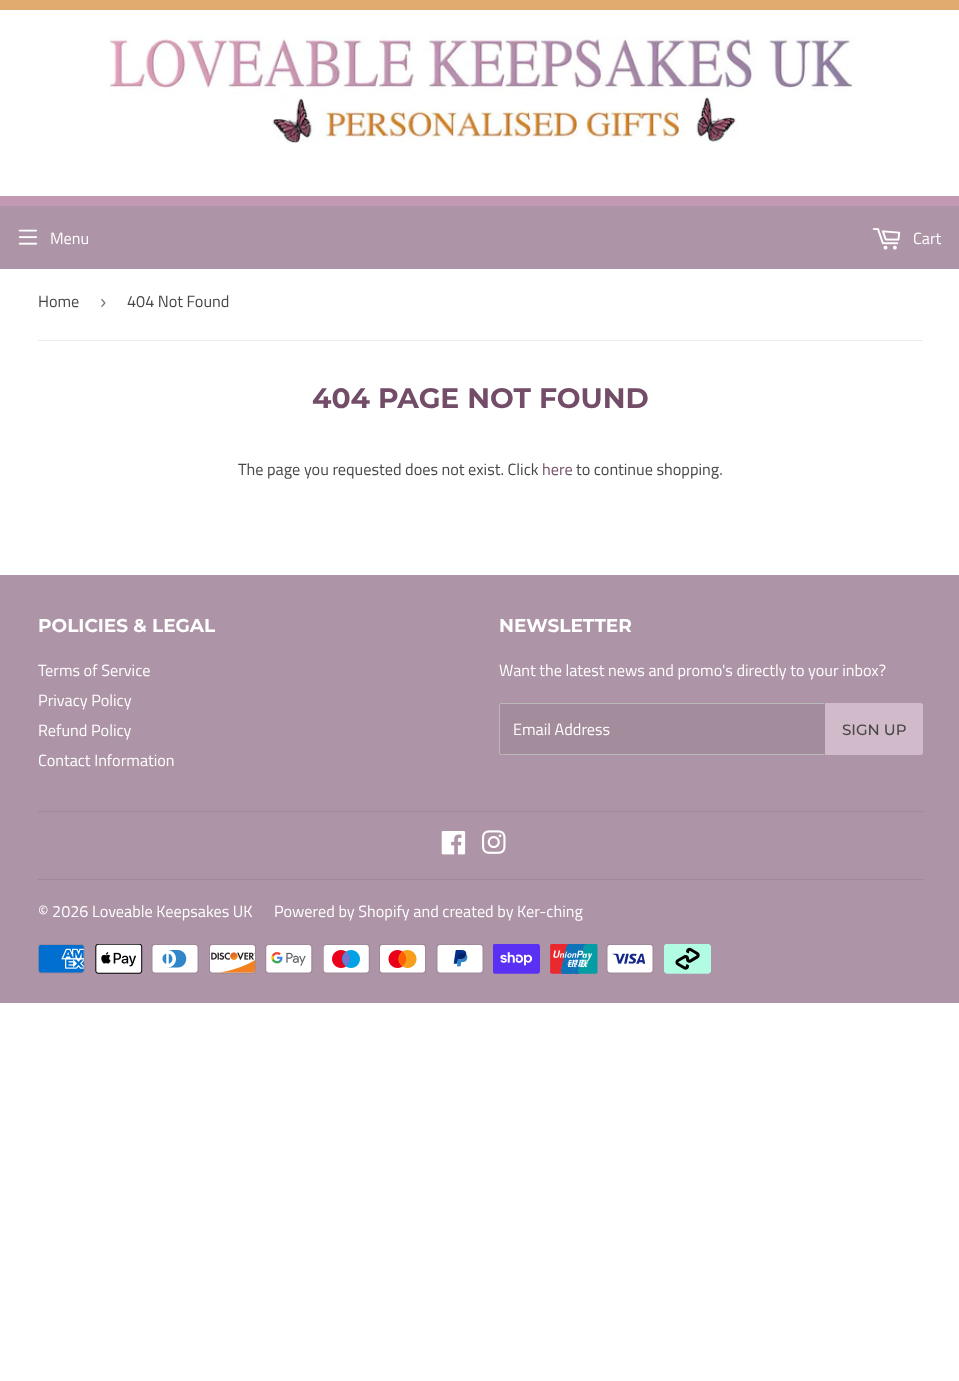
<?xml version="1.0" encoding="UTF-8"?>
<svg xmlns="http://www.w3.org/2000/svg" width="959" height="1381">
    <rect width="100%" height="100%" fill="#FFFFFF"/>
    <rect x="0" y="0" width="959" height="10" fill="#E1AB6F"/>
    <rect x="0" y="196" width="959" height="10" fill="#C398B2"/>
    <image x="109" y="35" width="746" height="108" href="img_01.png"/>
    <rect x="0" y="206" width="959" height="63" fill="#AD94A6"/>
    <image x="18" y="229" width="20" height="16" href="img_02.png"/>
    <text x="50" y="244" font-family="Titillium Web" font-size="16.25" fill="#FFFFFF">Menu</text>
    <image x="872" y="228" width="29" height="22" href="img_03.png"/>
    <text x="913" y="244" font-family="Titillium Web" font-size="16.25" fill="#FFFFFF">Cart</text>
    <rect x="38" y="340" width="885" height="1" fill="#ECECEC"/>
    <text x="38" y="307" font-family="Titillium Web" font-size="16.25" fill="#484646">Home</text>
    <text x="100" y="308" font-family="Liberation Sans" font-size="19" fill="#767676">›</text>
    <text x="127" y="307" font-family="Titillium Web" font-size="16.25" fill="#484646">404 Not Found</text>
    <text x="312" y="408" font-family="Montserrat" font-size="28.2" font-weight="700" fill="#734D68">404 PAGE NOT FOUND</text>
    <text x="238" y="475" font-family="Titillium Web" font-size="16.25" fill="#484646">The page you requested does not exist. Click</text>
    <text x="542" y="475" font-family="Titillium Web" font-size="16.25" fill="#734D68">here</text>
    <text x="576" y="475" font-family="Titillium Web" font-size="16.25" fill="#484646">to continue shopping.</text>
    <rect x="0" y="575" width="959" height="428" fill="#AD94A6"/>
    <text x="38" y="632" font-family="Montserrat" font-size="18.5" font-weight="700" fill="#FFFFFF">POLICIES &amp; LEGAL</text>
    <text font-family="Titillium Web" font-size="16.25" fill="#FFFFFF">
        <tspan x="38" y="676">Terms of Service</tspan>
        <tspan x="38" y="706">Privacy Policy</tspan>
        <tspan x="38" y="736">Refund Policy</tspan>
        <tspan x="38" y="766">Contact Information</tspan>
    </text>
    <text x="499" y="632" font-family="Montserrat" font-size="18.5" font-weight="700" fill="#FFFFFF">NEWSLETTER</text>
    <text x="499" y="676" font-family="Titillium Web" font-size="16.25" fill="#FFFFFF">Want the latest news and promo's directly to your inbox?</text>
    <rect x="499" y="703" width="326" height="52" rx="2.5" fill="#A38C9C"/>
    <rect x="500" y="703" width="324" height="1" fill="#B9B9B9"/>
    <rect x="500" y="754" width="324" height="1" fill="#B9B9B9"/>
    <rect x="499" y="704" width="1" height="50" fill="#B9B9B9"/>
    <text x="513" y="735" font-family="Titillium Web" font-size="16.25" fill="#FFFFFF">Email Address</text>
    <path d="M 825 703 H 920.5 C 922 703 923 704 923 705.5 V 752.5 C 923 754 922 755 920.5 755 H 825 Z" fill="#D1BBCB"/>
    <text x="842" y="735" font-family="Montserrat" font-size="15" font-weight="500" fill="#484646">SIGN UP</text>
    <rect x="38" y="811" width="885" height="1" fill="#A2869A"/>
    <image x="441" y="831" width="25" height="24" href="img_04.png"/>
    <image x="481" y="830" width="25" height="24" href="img_05.png"/>
    <rect x="38" y="879" width="885" height="1" fill="#A2869A"/>
    <text x="38" y="917" font-family="Titillium Web" font-size="16.25" fill="#FFFFFF">© 2026 Loveable Keepsakes UK</text>
    <text x="274" y="917" font-family="Titillium Web" font-size="16.25" fill="#FFFFFF">Powered by Shopify and created by Ker-ching</text>
    <image x="38" y="944" width="47" height="30" href="img_06.png"/>
    <image x="95" y="944" width="48" height="30" href="img_07.png"/>
    <image x="151" y="944" width="48" height="30" href="img_08.png"/>
    <image x="209" y="944" width="47" height="30" href="img_09.png"/>
    <image x="265" y="944" width="48" height="30" href="img_10.png"/>
    <image x="323" y="944" width="47" height="30" href="img_11.png"/>
    <image x="379" y="944" width="47" height="30" href="img_12.png"/>
    <image x="436" y="944" width="48" height="30" href="img_13.png"/>
    <image x="493" y="944" width="47" height="30" href="img_14.png"/>
    <image x="550" y="944" width="48" height="30" href="img_15.png"/>
    <image x="606" y="944" width="48" height="30" href="img_16.png"/>
    <image x="664" y="944" width="47" height="30" href="img_17.png"/>
</svg>
